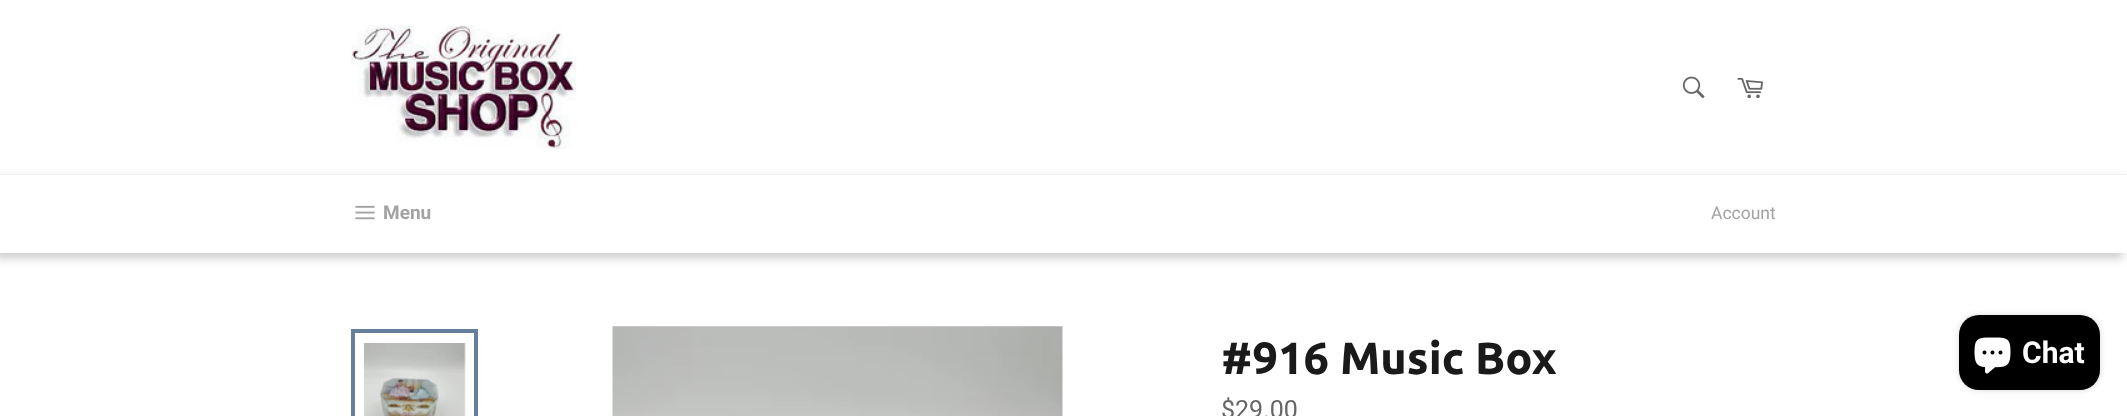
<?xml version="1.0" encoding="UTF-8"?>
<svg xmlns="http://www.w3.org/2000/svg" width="2127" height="416">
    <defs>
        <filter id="blur1" x="-50%" y="-200%" width="200%" height="500%"><feGaussianBlur stdDeviation="5"/></filter>
        <filter id="blur2" x="-50%" y="-200%" width="200%" height="500%"><feGaussianBlur stdDeviation="3"/></filter>
    </defs>
    <rect width="100%" height="100%" fill="#FFFFFF"/>
    <image x="351" y="25" width="226" height="124" href="img_01.png"/>
    <image x="1682" y="76" width="23" height="23" href="img_02.png"/>
    <image x="1737" y="78" width="26" height="21" href="img_03.png"/>
    <rect x="-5" y="179" width="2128" height="79" fill="#000000" fill-opacity="0.2" filter="url(#blur1)"/>
    <rect x="0" y="175" width="2127" height="78" fill="#FFFFFF"/>
    <rect x="0" y="174" width="2127" height="1" fill="#F2F2F2"/>
    <image x="355" y="205" width="20" height="15" href="img_04.png"/>
    <text x="383" y="219" font-family="Roboto" font-size="19" font-weight="700" fill="#A3A3A3">Menu</text>
    <text x="1711" y="219" font-family="Roboto" font-size="17.5" fill="#A3A3A3">Account</text>
    <image x="364" y="343" width="102" height="73" href="img_05.png"/>
    <rect x="353" y="331" width="123" height="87" fill="none" stroke="#667F9D" stroke-width="4"/>
    <image x="612" y="326" width="451" height="90" href="img_06.png"/>
    <text x="1221" y="374" font-family="Ubuntu" font-size="45" font-weight="700" fill="#1A1A1A">#916 Music Box</text>
    <text x="1221" y="418" font-family="Roboto" font-size="25" fill="#666666">$29.00</text>
    <rect x="1959" y="315" width="141" height="75" rx="20" fill="#000000" fill-opacity="0.15" filter="url(#blur2)"/>
    <rect x="1959" y="315" width="141" height="75" rx="20" fill="#000000"/>
    <image x="1974" y="337" width="37" height="37" href="img_07.png"/>
    <text x="2022" y="363" font-family="Roboto" font-size="30" font-weight="700" fill="#FFFFFF">Chat</text>
</svg>
